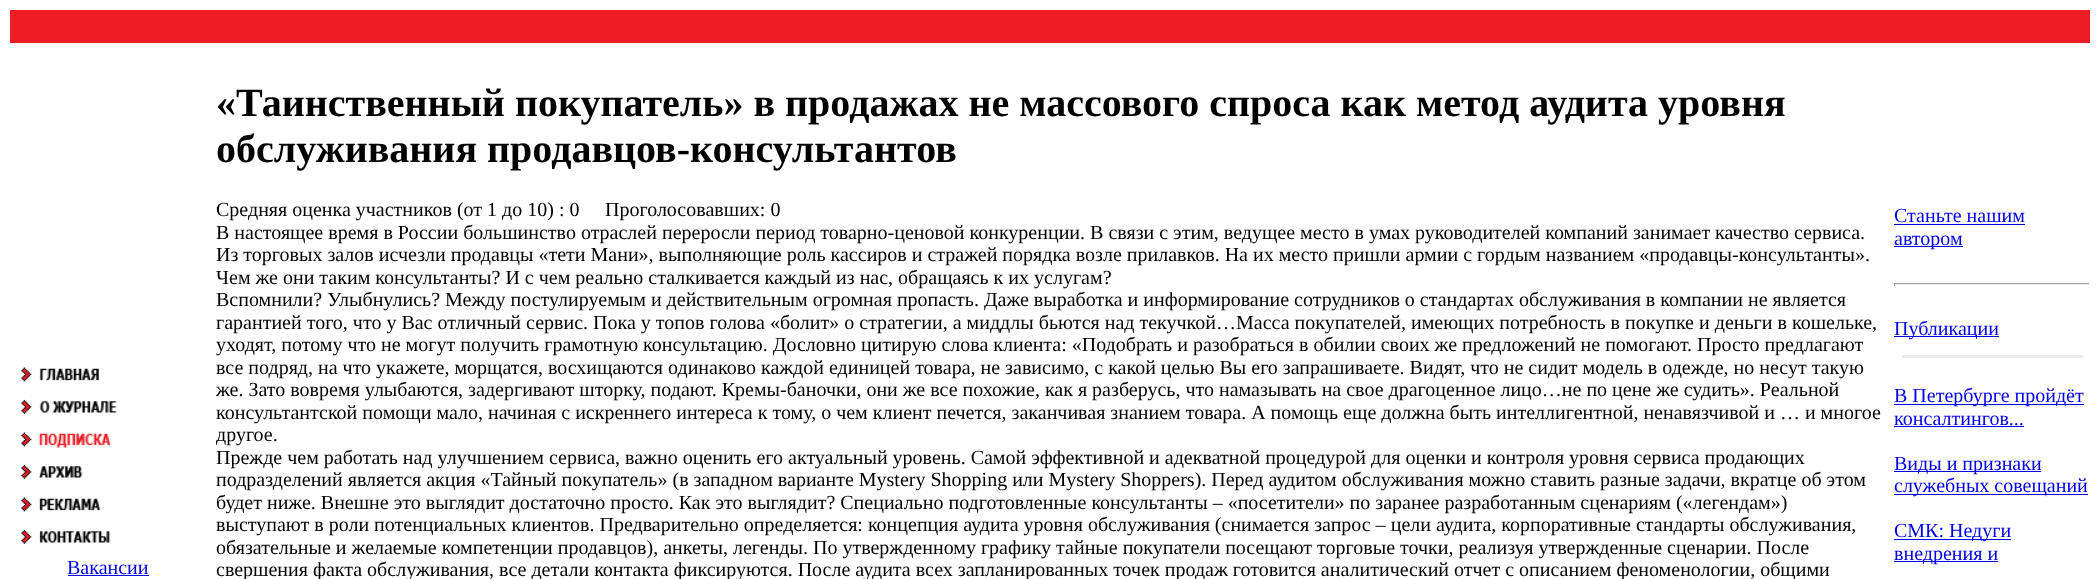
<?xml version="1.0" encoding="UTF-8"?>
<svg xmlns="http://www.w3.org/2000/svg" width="2099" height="579">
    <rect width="100%" height="100%" fill="#FFFFFF"/>
    <rect x="10" y="10" width="2080" height="33" fill="#EE1C25"/>
    <text font-family="Liberation Serif" font-size="40" font-weight="700" fill="#000000">
        <tspan x="216" y="116">«Таинственный покупатель» в продажах не массового спроса как метод аудита уровня</tspan>
        <tspan x="216" y="162">обслуживания продавцов-консультантов</tspan>
    </text>
    <text x="216" y="216" font-family="Liberation Serif" font-size="20" fill="#000000">Средняя оценка участников (от 1 до 10) : 0</text>
    <text x="605" y="216" font-family="Liberation Serif" font-size="20" fill="#000000">Проголосовавших: 0</text>
    <text font-family="Liberation Serif" font-size="20" fill="#000000">
        <tspan x="216" y="239">В настоящее время в России большинство отраслей переросли период товарно-ценовой конкуренции. В связи с этим, ведущее место в умах руководителей компаний занимает качество сервиса.</tspan>
        <tspan x="216" y="261">Из торговых залов исчезли продавцы «тети Мани», выполняющие роль кассиров и стражей порядка возле прилавков. На их место пришли армии с гордым названием «продавцы-консультанты».</tspan>
        <tspan x="216" y="284">Чем же они таким консультанты? И с чем реально сталкивается каждый из нас, обращаясь к их услугам?</tspan>
        <tspan x="216" y="306">Вспомнили? Улыбнулись? Между постулируемым и действительным огромная пропасть. Даже выработка и информирование сотрудников о стандартах обслуживания в компании не является</tspan>
        <tspan x="216" y="329">гарантией того, что у Вас отличный сервис. Пока у топов голова «болит» о стратегии, а миддлы бьются над текучкой…Масса покупателей, имеющих потребность в покупке и деньги в кошельке,</tspan>
        <tspan x="216" y="351">уходят, потому что не могут получить грамотную консультацию. Дословно цитирую слова клиента: «Подобрать и разобраться в обилии своих же предложений не помогают. Просто предлагают</tspan>
        <tspan x="216" y="374">все подряд, на что укажете, морщатся, восхищаются одинаково каждой единицей товара, не зависимо, с какой целью Вы его запрашиваете. Видят, что не сидит модель в одежде, но несут такую</tspan>
        <tspan x="216" y="396">же. Зато вовремя улыбаются, задергивают шторку, подают. Кремы-баночки, они же все похожие, как я разберусь, что намазывать на свое драгоценное лицо…не по цене же судить». Реальной</tspan>
        <tspan x="216" y="419">консультантской помощи мало, начиная с искреннего интереса к тому, о чем клиент печется, заканчивая знанием товара. А помощь еще должна быть интеллигентной, ненавязчивой и … и многое</tspan>
        <tspan x="216" y="441">другое.</tspan>
        <tspan x="216" y="464">Прежде чем работать над улучшением сервиса, важно оценить его актуальный уровень. Самой эффективной и адекватной процедурой для оценки и контроля уровня сервиса продающих</tspan>
        <tspan x="216" y="486">подразделений является акция «Тайный покупатель» (в западном варианте Mystery Shopping или Mystery Shoppers). Перед аудитом обслуживания можно ставить разные задачи, вкратце об этом</tspan>
        <tspan x="216" y="509">будет ниже. Внешне это выглядит достаточно просто. Как это выглядит? Специально подготовленные консультанты – «посетители» по заранее разработанным сценариям («легендам»)</tspan>
        <tspan x="216" y="531">выступают в роли потенциальных клиентов. Предварительно определяется: концепция аудита уровня обслуживания (снимается запрос – цели аудита, корпоративные стандарты обслуживания,</tspan>
        <tspan x="216" y="554">обязательные и желаемые компетенции продавцов), анкеты, легенды. По утвержденному графику тайные покупатели посещают торговые точки, реализуя утвержденные сценарии. После</tspan>
        <tspan x="216" y="576">свершения факта обслуживания, все детали контакта фиксируются. После аудита всех запланированных точек продаж готовится аналитический отчет с описанием феноменологии, общими</tspan>
    </text>
    <text x="1894" y="222" font-family="Liberation Serif" font-size="20" fill="#0000EE">Станьте нашим</text>
    <rect x="1894" y="224" width="131" height="1" fill="#0000EE"/>
    <rect x="1894" y="246" width="69" height="1" fill="#0000EE"/>
    <text x="1894" y="245" font-family="Liberation Serif" font-size="20" fill="#0000EE">автором</text>
    <rect x="1894" y="283" width="196" height="1" fill="#9F9F9F"/>
    <rect x="2089" y="283" width="1" height="3" fill="#EEEEEE"/>
    <rect x="1894" y="284" width="196" height="1" fill="#EEEEEE"/>
    <rect x="1894" y="283" width="1" height="3" fill="#9F9F9F"/>
    <rect x="1894" y="336" width="105" height="1" fill="#0000EE"/>
    <text x="1894" y="335" font-family="Liberation Serif" font-size="20" fill="#0000EE">Публикации</text>
    <rect x="1902" y="355" width="181" height="3" fill="#EDEDED"/>
    <rect x="1894" y="404" width="190" height="1" fill="#0000EE"/>
    <text font-family="Liberation Serif" font-size="20" fill="#0000EE">
        <tspan x="1894" y="402">В Петербурге пройдёт</tspan>
        <tspan x="1894" y="425">консалтингов...</tspan>
    </text>
    <rect x="1894" y="426" width="130" height="1" fill="#0000EE"/>
    <rect x="1894" y="471" width="147" height="1" fill="#0000EE"/>
    <text x="1894" y="470" font-family="Liberation Serif" font-size="20" fill="#0000EE">Виды и признаки</text>
    <rect x="1894" y="494" width="194" height="1" fill="#0000EE"/>
    <text x="1894" y="492" font-family="Liberation Serif" font-size="20" fill="#0000EE">служебных совещаний</text>
    <rect x="1894" y="539" width="117" height="1" fill="#0000EE"/>
    <text x="1894" y="537" font-family="Liberation Serif" font-size="20" fill="#0000EE">СМК: Недуги</text>
    <rect x="1894" y="561" width="104" height="1" fill="#0000EE"/>
    <text x="1894" y="560" font-family="Liberation Serif" font-size="20" fill="#0000EE">внедрения и</text>
    <image x="21" y="367" width="78" height="15" href="img_01.png"/>
    <image x="21" y="399" width="96" height="15" href="img_02.png"/>
    <image x="21" y="432" width="90" height="16" href="img_03.png"/>
    <image x="21" y="464" width="62" height="15" href="img_04.png"/>
    <image x="21" y="497" width="80" height="15" href="img_05.png"/>
    <image x="21" y="529" width="90" height="15" href="img_06.png"/>
    <text x="67" y="574" font-family="Liberation Serif" font-size="20" fill="#0000EE">Вакансии</text>
    <rect x="68" y="575" width="81" height="1" fill="#0000EE"/>
</svg>
